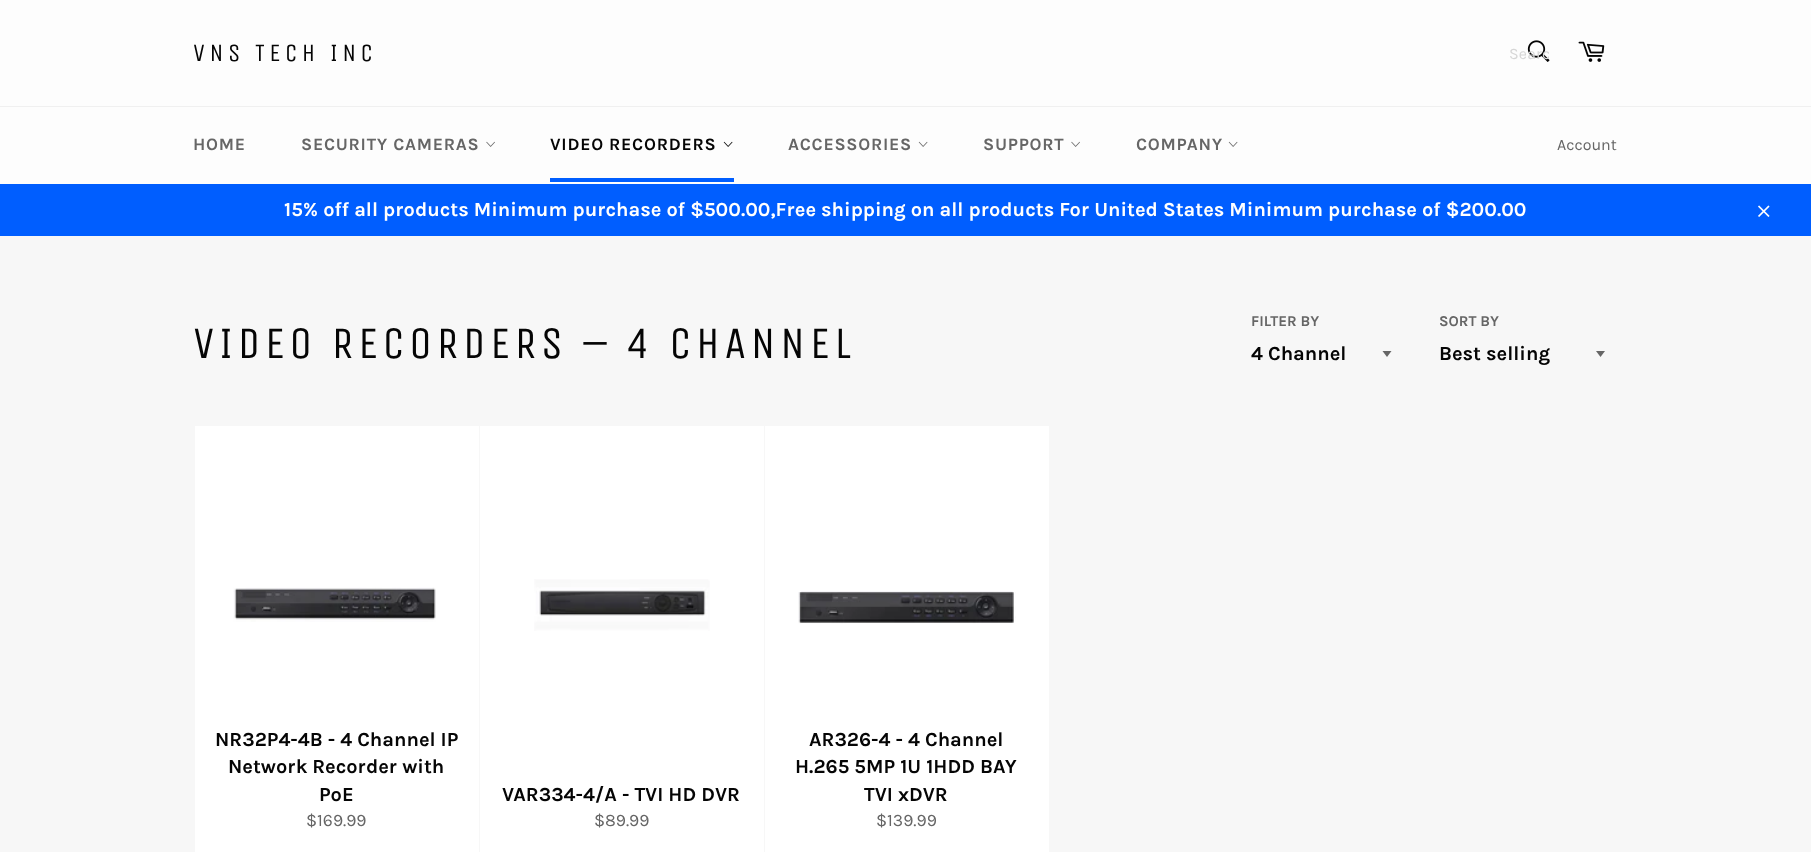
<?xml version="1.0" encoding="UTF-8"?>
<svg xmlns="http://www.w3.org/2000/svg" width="1811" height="852">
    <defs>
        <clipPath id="clip1"><rect x="1509" y="44" width="40" height="19"/></clipPath>
    </defs>
    <rect width="100%" height="100%" fill="#F7F7F7"/>
    <rect x="0" y="0" width="1811" height="184" fill="#FDFDFD"/>
    <text x="193" y="61" font-family="Unica One" font-size="25" letter-spacing="4.5" fill="#050505">VNS TECH INC</text>
    <image x="1527" y="40" width="23" height="22" href="img_01.png"/>
    <g clip-path="url(#clip1)">
        <text x="1509" y="59" font-family="Karla" font-size="16" fill="#D6D6D6">Searc</text>
    </g>
    <image x="1578" y="41" width="27" height="21" href="img_02.png"/>
    <rect x="0" y="106" width="1811" height="1" fill="#F0F0F0"/>
    <text x="193" y="150" font-family="Karla" font-size="17.5" font-weight="700" letter-spacing="0.75" fill="#666666">HOME</text>
    <text x="301" y="150" font-family="Karla" font-size="17.5" font-weight="700" letter-spacing="0.75" fill="#666666">SECURITY CAMERAS</text>
    <image x="486" y="141" width="9" height="6" href="img_03.png"/>
    <text x="550" y="150" font-family="Karla" font-size="17.5" font-weight="700" letter-spacing="0.75" fill="#050505">VIDEO RECORDERS</text>
    <image x="723" y="141" width="10" height="6" href="img_04.png"/>
    <rect x="550" y="178" width="184" height="4" fill="#005EFF"/>
    <text x="788" y="150" font-family="Karla" font-size="17.5" font-weight="700" letter-spacing="0.75" fill="#666666">ACCESSORIES</text>
    <image x="918" y="141" width="10" height="6" href="img_05.png"/>
    <text x="983" y="150" font-family="Karla" font-size="17.5" font-weight="700" letter-spacing="0.75" fill="#666666">SUPPORT</text>
    <image x="1071" y="141" width="9" height="6" href="img_03.png"/>
    <text x="1136" y="150" font-family="Karla" font-size="17.5" font-weight="700" letter-spacing="0.75" fill="#666666">COMPANY</text>
    <image x="1228" y="141" width="10" height="6" href="img_05.png"/>
    <text x="1557" y="150" font-family="Karla" font-size="16" fill="#666666">Account</text>
    <rect x="0" y="184" width="1811" height="52" fill="#005EFF"/>
    <text x="284" y="216" font-family="Karla" font-size="20" font-weight="700" fill="#FFFFFF">15% off all products Minimum purchase of $500.00,Free shipping on all products For United States Minimum purchase of $200.00</text>
    <image x="1758" y="205" width="12" height="12" href="img_06.png"/>
    <text x="193" y="358" font-family="Unica One" font-size="45" letter-spacing="4.5" fill="#050505">VIDEO RECORDERS – 4 CHANNEL</text>
    <text x="1251" y="326" font-family="Karla" font-size="15" font-weight="700" fill="#666666">FILTER BY</text>
    <path d="M 1382.5 351 L 1387 357 L 1391.5 351 Z" fill="#666666"/>
    <text x="1251" y="360" font-family="Karla" font-size="20" font-weight="700" fill="#050505">4 Channel</text>
    <text x="1439" y="326" font-family="Karla" font-size="15" font-weight="700" fill="#666666">SORT BY</text>
    <path d="M 1596 351 L 1600.5 357 L 1605 351 Z" fill="#666666"/>
    <text x="1439" y="360" font-family="Karla" font-size="20" font-weight="700" fill="#050505">Best selling</text>
    <rect x="195" y="426" width="284" height="426" fill="#FFFFFF"/>
    <image x="233" y="587" width="203" height="35" href="img_07.png"/>
    <text x="215" y="746" font-family="Karla" font-size="20" font-weight="700" fill="#050505">NR32P4-4B - 4 Channel IP</text>
    <text x="228" y="773" font-family="Karla" font-size="20" font-weight="700" fill="#050505">Network Recorder with</text>
    <text x="319" y="801" font-family="Karla" font-size="20" font-weight="700" fill="#050505">PoE</text>
    <text x="306" y="826" font-family="Karla" font-size="17.5" fill="#666666">$169.99</text>
    <rect x="480" y="426" width="284" height="426" fill="#FFFFFF"/>
    <image x="534" y="579" width="176" height="52" href="img_08.png"/>
    <text x="502" y="801" font-family="Karla" font-size="20" font-weight="700" fill="#050505">VAR334-4/A - TVI HD DVR</text>
    <text x="594" y="826" font-family="Karla" font-size="17.5" fill="#666666">$89.99</text>
    <rect x="765" y="426" width="284" height="426" fill="#FFFFFF"/>
    <image x="798" y="591" width="218" height="33" href="img_09.png"/>
    <text x="809" y="746" font-family="Karla" font-size="20" font-weight="700" fill="#050505">AR326-4 - 4 Channel</text>
    <text x="795" y="773" font-family="Karla" font-size="20" font-weight="700" fill="#050505">H.265 5MP 1U 1HDD BAY</text>
    <text x="864" y="801" font-family="Karla" font-size="20" font-weight="700" fill="#050505">TVI xDVR</text>
    <text x="876" y="826" font-family="Karla" font-size="17.5" fill="#666666">$139.99</text>
</svg>
